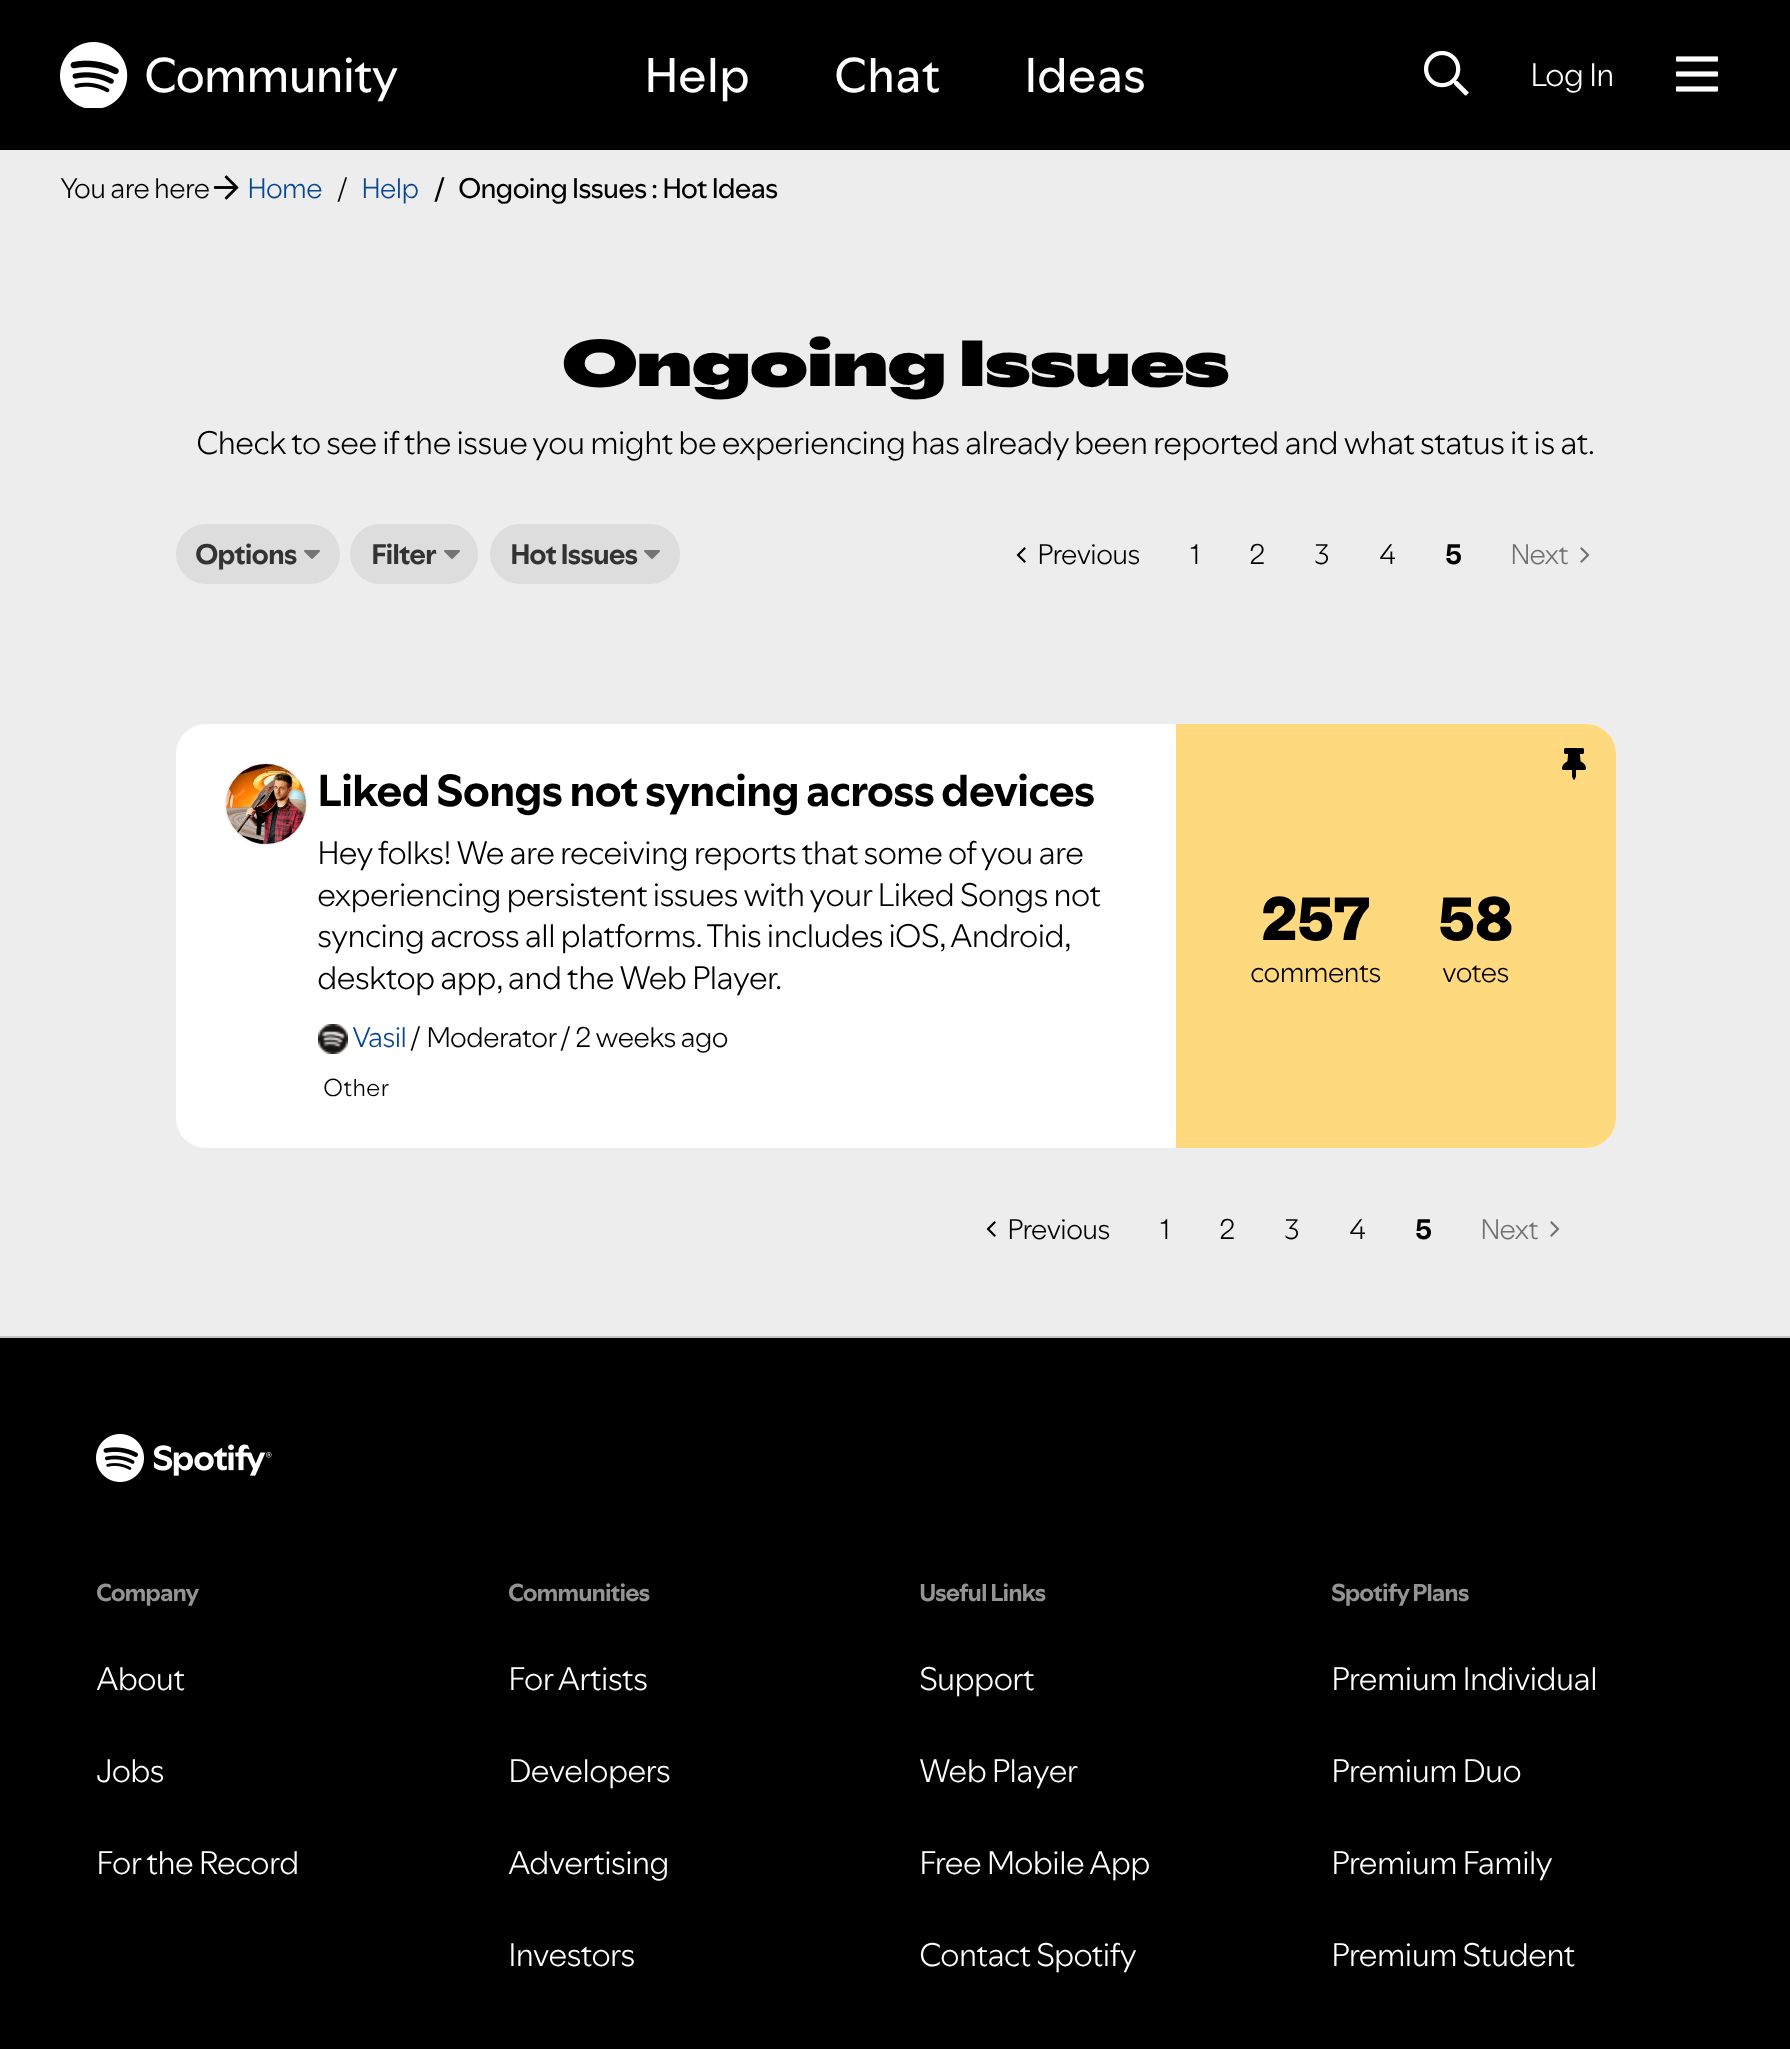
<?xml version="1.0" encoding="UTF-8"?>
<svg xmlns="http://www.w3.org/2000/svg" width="1790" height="2049">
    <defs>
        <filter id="blur1" x="-50%" y="-200%" width="200%" height="500%"><feGaussianBlur stdDeviation="1"/></filter>
    </defs>
    <rect width="100%" height="100%" fill="#EDEDED"/>
    <rect x="0" y="0" width="1790" height="150" fill="#000000"/>
    <image x="60" y="42" width="68" height="66" href="img_01.png"/>
    <text x="144" y="92" font-family="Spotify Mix" font-size="48" letter-spacing="-1" fill="#FFFFFF">Community</text>
    <text x="644" y="92" font-family="Spotify Mix" font-size="48" fill="#FFFFFF">Help</text>
    <text x="834" y="92" font-family="Spotify Mix" font-size="48" fill="#FFFFFF">Chat</text>
    <text x="1024" y="92" font-family="Spotify Mix" font-size="48" fill="#FFFFFF">Ideas</text>
    <image x="1424" y="50" width="45" height="46" href="img_02.png"/>
    <text x="1530" y="86" font-family="Spotify Mix" font-size="32" font-weight="300" letter-spacing="-1" fill="#FFFFFF">Log In</text>
    <image x="1676" y="56" width="42" height="36" href="img_03.png"/>
    <text x="60" y="198" font-family="Spotify Mix" font-size="28" font-weight="300" letter-spacing="-1" fill="#000000">You are here</text>
    <image x="214" y="175" width="25" height="25" href="img_04.png"/>
    <text x="247" y="198" font-family="Spotify Mix" font-size="28" font-weight="300" letter-spacing="-1" fill="#084791">Home</text>
    <text x="337" y="198" font-family="Spotify Mix" font-size="28" font-weight="300" letter-spacing="-1" fill="#000000">/</text>
    <text x="361" y="198" font-family="Spotify Mix" font-size="28" font-weight="300" letter-spacing="-1" fill="#084791">Help</text>
    <text x="434" y="198" font-family="Spotify Mix" font-size="28" letter-spacing="-1" fill="#000000">/</text>
    <text x="458" y="198" font-family="Spotify Mix" font-size="28" letter-spacing="-1" fill="#000000">Ongoing Issues : Hot Ideas</text>
    <text x="562" y="386" font-family="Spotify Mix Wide" font-size="64" font-weight="900" letter-spacing="-1" fill="#000000">Ongoing Issues</text>
    <text x="196" y="454" font-family="Spotify Mix" font-size="32" font-weight="300" letter-spacing="-1" fill="#000000">Check to see if the issue you might be experiencing has already been reported and what status it is at.</text>
    <rect x="176" y="524" width="164" height="60" rx="30" fill="#DDDDDD"/>
    <text x="195" y="564" font-family="Spotify Mix" font-size="28" font-weight="700" letter-spacing="-1" fill="#333333">Options</text>
    <image x="304" y="550" width="16" height="9" href="img_05.png"/>
    <rect x="350" y="524" width="128" height="60" rx="30" fill="#DDDDDD"/>
    <text x="371" y="564" font-family="Spotify Mix" font-size="28" font-weight="700" letter-spacing="-1" fill="#333333">Filter</text>
    <image x="444" y="550" width="16" height="9" href="img_05.png"/>
    <rect x="490" y="524" width="190" height="60" rx="30" fill="#DDDDDD"/>
    <text x="510" y="564" font-family="Spotify Mix" font-size="28" font-weight="700" letter-spacing="-1" fill="#333333">Hot Issues</text>
    <image x="644" y="550" width="16" height="9" href="img_05.png"/>
    <image x="1016" y="547" width="10" height="16" href="img_06.png"/>
    <text x="1037" y="564" font-family="Spotify Mix" font-size="28" font-weight="300" letter-spacing="-1" fill="#000000">Previous</text>
    <text x="1190" y="564" font-family="Spotify Mix" font-size="28" font-weight="300" letter-spacing="-1" fill="#000000">1</text>
    <text x="1249" y="564" font-family="Spotify Mix" font-size="28" font-weight="300" letter-spacing="-1" fill="#000000">2</text>
    <text x="1314" y="564" font-family="Spotify Mix" font-size="28" font-weight="300" letter-spacing="-1" fill="#000000">3</text>
    <text x="1379" y="564" font-family="Spotify Mix" font-size="28" font-weight="300" letter-spacing="-1" fill="#000000">4</text>
    <text x="1445" y="564" font-family="Spotify Mix" font-size="28" font-weight="700" letter-spacing="-1" fill="#000000">5</text>
    <text x="1510" y="564" font-family="Spotify Mix" font-size="28" font-weight="300" letter-spacing="-1" fill="#717171">Next</text>
    <image x="1580" y="547" width="10" height="16" href="img_07.png"/>
    <rect x="176" y="724" width="1440" height="424" rx="30" fill="#FFFFFF"/>
    <rect x="226" y="764" width="80" height="80" rx="40" fill="#C4C4C4" filter="url(#blur1)"/>
    <image x="226" y="764" width="80" height="80" href="img_08.png"/>
    <text x="317" y="806" font-family="Spotify Mix" font-size="44" font-weight="700" letter-spacing="-1" fill="#000000">Liked Songs not syncing across devices</text>
    <text font-family="Spotify Mix" font-size="32" font-weight="300" letter-spacing="-1" fill="#000000">
        <tspan x="317" y="864">Hey folks! We are receiving reports that some of you are</tspan>
        <tspan x="317" y="906">experiencing persistent issues with your Liked Songs not</tspan>
        <tspan x="317" y="947">syncing across all platforms. This includes iOS, Android,</tspan>
        <tspan x="317" y="989">desktop app, and the Web Player.</tspan>
    </text>
    <image x="318" y="1024" width="30" height="30" href="img_09.png"/>
    <text x="352" y="1047" font-family="Spotify Mix" font-size="28" font-weight="300" letter-spacing="-1" fill="#084791">Vasil</text>
    <text x="410" y="1047" font-family="Spotify Mix" font-size="28" font-weight="300" letter-spacing="-1" fill="#000000">/</text>
    <text x="426" y="1047" font-family="Spotify Mix" font-size="28" font-weight="300" letter-spacing="-1" fill="#000000">Moderator</text>
    <text x="560" y="1047" font-family="Spotify Mix" font-size="28" font-weight="300" letter-spacing="-1" fill="#000000">/</text>
    <text x="575" y="1047" font-family="Spotify Mix" font-size="28" font-weight="300" letter-spacing="-1" fill="#000000">2 weeks ago</text>
    <text x="323" y="1096" font-family="Spotify Mix" font-size="24" font-weight="300" fill="#000000">Other</text>
    <path d="M 1176 724 H 1586 C 1602.5 724 1616 737.5 1616 754 V 1118 C 1616 1134.5 1602.5 1148 1586 1148 H 1176 Z" fill="#FFD97E"/>
    <text x="1261" y="940" font-family="Spotify Mix" font-size="60" font-weight="800" letter-spacing="-1" fill="#000000">257</text>
    <text x="1250" y="982" font-family="Spotify Mix" font-size="28" font-weight="300" letter-spacing="-1" fill="#000000">comments</text>
    <text x="1438" y="940" font-family="Spotify Mix" font-size="60" font-weight="800" letter-spacing="-1" fill="#000000">58</text>
    <text x="1442" y="982" font-family="Spotify Mix" font-size="28" font-weight="300" letter-spacing="-1" fill="#000000">votes</text>
    <image x="1562" y="748" width="24" height="32" href="img_10.png"/>
    <image x="986" y="1221" width="10" height="16" href="img_06.png"/>
    <text x="1007" y="1239" font-family="Spotify Mix" font-size="28" font-weight="300" letter-spacing="-1" fill="#000000">Previous</text>
    <text x="1160" y="1239" font-family="Spotify Mix" font-size="28" font-weight="300" letter-spacing="-1" fill="#000000">1</text>
    <text x="1219" y="1239" font-family="Spotify Mix" font-size="28" font-weight="300" letter-spacing="-1" fill="#000000">2</text>
    <text x="1284" y="1239" font-family="Spotify Mix" font-size="28" font-weight="300" letter-spacing="-1" fill="#000000">3</text>
    <text x="1349" y="1239" font-family="Spotify Mix" font-size="28" font-weight="300" letter-spacing="-1" fill="#000000">4</text>
    <text x="1415" y="1239" font-family="Spotify Mix" font-size="28" font-weight="700" letter-spacing="-1" fill="#000000">5</text>
    <text x="1480" y="1239" font-family="Spotify Mix" font-size="28" font-weight="300" letter-spacing="-1" fill="#717171">Next</text>
    <image x="1550" y="1221" width="10" height="16" href="img_07.png"/>
    <rect x="0" y="1336" width="1790" height="2" fill="#C4C4C4"/>
    <rect x="0" y="1338" width="1790" height="711" fill="#000000"/>
    <image x="96" y="1434" width="176" height="48" href="img_11.png"/>
    <text x="96" y="1601" font-family="Spotify Mix" font-size="24" font-weight="700" letter-spacing="-1" fill="#939393">Company</text>
    <text x="96" y="1690" font-family="Spotify Mix" font-size="32" font-weight="300" letter-spacing="-1" fill="#FFFFFF">About</text>
    <text x="96" y="1782" font-family="Spotify Mix" font-size="32" font-weight="300" letter-spacing="-1" fill="#FFFFFF">Jobs</text>
    <text x="96" y="1874" font-family="Spotify Mix" font-size="32" font-weight="300" letter-spacing="-1" fill="#FFFFFF">For the Record</text>
    <text x="508" y="1601" font-family="Spotify Mix" font-size="24" font-weight="700" letter-spacing="-1" fill="#939393">Communities</text>
    <text x="508" y="1690" font-family="Spotify Mix" font-size="32" font-weight="300" letter-spacing="-1" fill="#FFFFFF">For Artists</text>
    <text x="508" y="1782" font-family="Spotify Mix" font-size="32" font-weight="300" letter-spacing="-1" fill="#FFFFFF">Developers</text>
    <text x="508" y="1874" font-family="Spotify Mix" font-size="32" font-weight="300" letter-spacing="-1" fill="#FFFFFF">Advertising</text>
    <text x="508" y="1966" font-family="Spotify Mix" font-size="32" font-weight="300" letter-spacing="-1" fill="#FFFFFF">Investors</text>
    <text x="919" y="1601" font-family="Spotify Mix" font-size="24" font-weight="700" letter-spacing="-1" fill="#939393">Useful Links</text>
    <text x="919" y="1690" font-family="Spotify Mix" font-size="32" font-weight="300" letter-spacing="-1" fill="#FFFFFF">Support</text>
    <text x="919" y="1782" font-family="Spotify Mix" font-size="32" font-weight="300" letter-spacing="-1" fill="#FFFFFF">Web Player</text>
    <text x="919" y="1874" font-family="Spotify Mix" font-size="32" font-weight="300" letter-spacing="-1" fill="#FFFFFF">Free Mobile App</text>
    <text x="919" y="1966" font-family="Spotify Mix" font-size="32" font-weight="300" letter-spacing="-1" fill="#FFFFFF">Contact Spotify</text>
    <text x="1331" y="1601" font-family="Spotify Mix" font-size="24" font-weight="700" letter-spacing="-1" fill="#939393">Spotify Plans</text>
    <text x="1331" y="1690" font-family="Spotify Mix" font-size="32" font-weight="300" letter-spacing="-1" fill="#FFFFFF">Premium Individual</text>
    <text x="1331" y="1782" font-family="Spotify Mix" font-size="32" font-weight="300" letter-spacing="-1" fill="#FFFFFF">Premium Duo</text>
    <text x="1331" y="1874" font-family="Spotify Mix" font-size="32" font-weight="300" letter-spacing="-1" fill="#FFFFFF">Premium Family</text>
    <text x="1331" y="1966" font-family="Spotify Mix" font-size="32" font-weight="300" letter-spacing="-1" fill="#FFFFFF">Premium Student</text>
</svg>
